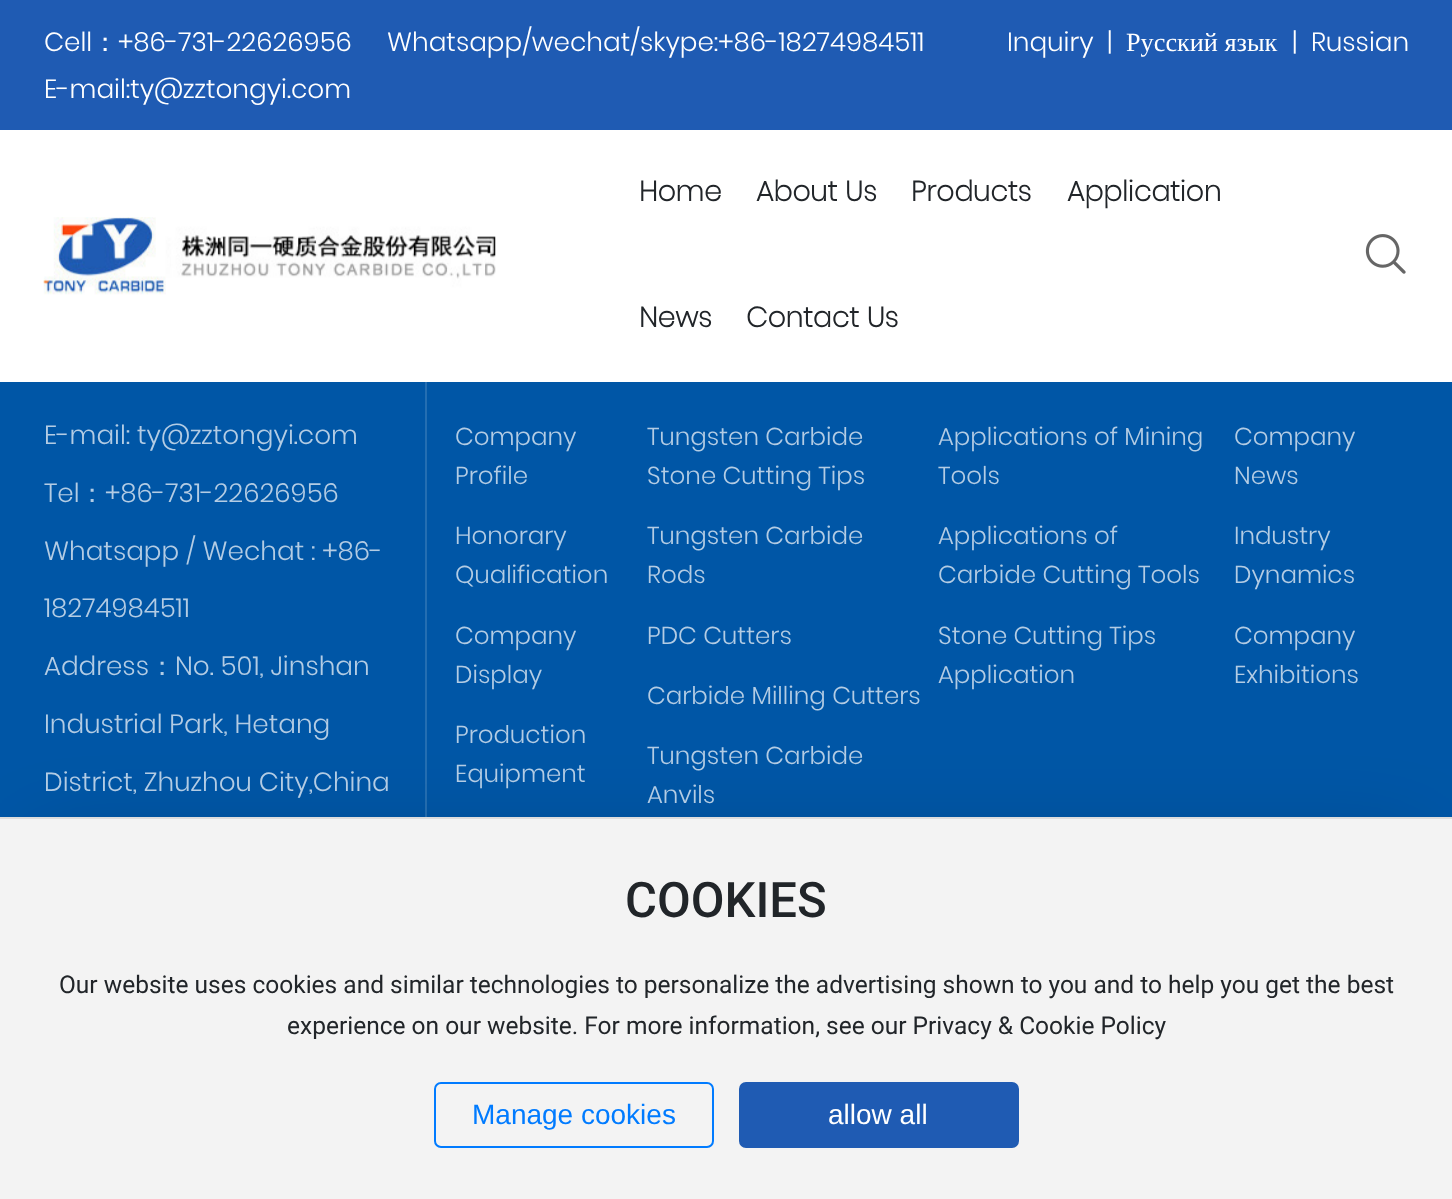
<?xml version="1.0" encoding="UTF-8"?>
<svg xmlns="http://www.w3.org/2000/svg" width="1452" height="1199">
    <defs>
        <filter id="blur1" x="-50%" y="-200%" width="200%" height="500%"><feGaussianBlur stdDeviation="44"/></filter>
    </defs>
    <rect width="100%" height="100%" fill="#0056A6"/>
    <rect x="0" y="130" width="1452" height="252" fill="#FFFFFF"/>
    <rect x="0" y="0" width="1452" height="130" fill="#1F5BB3"/>
    <text x="44" y="51" font-family="Poppins" font-size="26.25" font-weight="300" fill="#FFFFFF">Cell</text>
    <text x="92" y="51" font-family="WenQuanYi Zen Hei" font-size="26.25" font-weight="500" fill="#FFFFFF">：</text>
    <text x="118" y="51" font-family="Poppins" font-size="26.25" font-weight="300" fill="#FFFFFF">+86-731-22626956</text>
    <text x="387" y="51" font-family="Poppins" font-size="26.25" font-weight="300" fill="#FFFFFF">Whatsapp/wechat/skype:+86-18274984511</text>
    <text x="44" y="98" font-family="Poppins" font-size="26.25" font-weight="300" fill="#FFFFFF">E-mail:ty@zztongyi.com</text>
    <text x="1007" y="51" font-family="Poppins" font-size="26.25" font-weight="300" fill="#FFFFFF">Inquiry</text>
    <text x="1107" y="51" font-family="Poppins" font-size="26.25" font-weight="300" fill="#FFFFFF">|</text>
    <text x="1126" y="51" font-family="Liberation Serif" font-size="26.25" fill="#FFFFFF">Русский язык</text>
    <text x="1292" y="51" font-family="Poppins" font-size="26.25" font-weight="300" fill="#FFFFFF">|</text>
    <text x="1311" y="51" font-family="Poppins" font-size="26.25" font-weight="300" fill="#FFFFFF">Russian</text>
    <image x="43" y="217" width="453" height="78" href="img_01.png"/>
    <text x="639" y="201" font-family="Poppins" font-size="28" font-weight="700" fill="#212529">Home</text>
    <text x="756" y="201" font-family="Poppins" font-size="28" font-weight="700" fill="#212529">About Us</text>
    <text x="911" y="201" font-family="Poppins" font-size="28" font-weight="700" fill="#212529">Products</text>
    <text x="1067" y="201" font-family="Poppins" font-size="28" font-weight="700" fill="#212529">Application</text>
    <text x="639" y="327" font-family="Poppins" font-size="28" font-weight="700" fill="#212529">News</text>
    <text x="746" y="327" font-family="Poppins" font-size="28" font-weight="700" fill="#212529">Contact Us</text>
    <image x="1365" y="234" width="41" height="40" href="img_02.png"/>
    <rect x="425" y="382" width="2" height="435" fill="#246EB2"/>
    <rect x="37" y="847" width="1379" height="310" fill="#000000" fill-opacity="0.2" filter="url(#blur1)"/>
    <rect x="0" y="819" width="1452" height="380" fill="#F3F3F3"/>
    <rect x="0" y="817" width="1452" height="2" fill="#DDDDDD"/>
    <text x="625" y="917" font-family="Roboto" font-size="49" font-weight="500" fill="#212529">COOKIES</text>
    <text x="59" y="993" font-family="Roboto" font-size="24.5" fill="#212529">Our website uses cookies and similar technologies to personalize the advertising shown to you and to help you get the best</text>
    <text x="287" y="1034" font-family="Roboto" font-size="24.5" fill="#212529">experience on our website. For more information, see our Privacy &amp; Cookie Policy</text>
    <rect x="435" y="1083" width="278" height="64" rx="6" fill="none" stroke="#007BFF" stroke-width="2"/>
    <text x="472" y="1124" font-family="Liberation Sans" font-size="28" fill="#007BFF">Manage cookies</text>
    <rect x="740" y="1083" width="278" height="64" rx="6" fill="#1F5BB3" stroke="#1F5BB3" stroke-width="2"/>
    <text x="828" y="1124" font-family="Liberation Sans" font-size="28" fill="#FFFFFF">allow all</text>
    <text x="44" y="444" font-family="Poppins" font-size="26.25" font-weight="300" fill="#B3CCE4">E-mail: ty@zztongyi.com</text>
    <text x="44" y="502" font-family="Poppins" font-size="26.25" font-weight="300" fill="#B3CCE4">Tel</text>
    <text x="79" y="502" font-family="WenQuanYi Zen Hei" font-size="26.25" font-weight="500" fill="#B3CCE4">：</text>
    <text x="105" y="502" font-family="Poppins" font-size="26.25" font-weight="300" fill="#B3CCE4">+86-731-22626956</text>
    <text x="44" y="560" font-family="Poppins" font-size="26.25" font-weight="300" fill="#B3CCE4">Whatsapp / Wechat : +86-</text>
    <text x="44" y="617" font-family="Poppins" font-size="26.25" font-weight="300" fill="#B3CCE4">18274984511</text>
    <text x="44" y="675" font-family="Poppins" font-size="26.25" font-weight="300" fill="#B3CCE4">Address</text>
    <text x="149" y="675" font-family="WenQuanYi Zen Hei" font-size="26.25" font-weight="500" fill="#B3CCE4">：</text>
    <text x="175" y="675" font-family="Poppins" font-size="26.25" font-weight="300" fill="#B3CCE4">No. 501, Jinshan</text>
    <text x="44" y="733" font-family="Poppins" font-size="26.25" font-weight="300" fill="#B3CCE4">Industrial Park, Hetang</text>
    <text x="44" y="791" font-family="Poppins" font-size="26.25" font-weight="300" fill="#B3CCE4">District, Zhuzhou City,China</text>
    <text font-family="Poppins" font-size="24.5" font-weight="300" fill="#B3CCE4">
        <tspan x="455" y="445">Company</tspan>
        <tspan x="455" y="484">Profile</tspan>
    </text>
    <text font-family="Poppins" font-size="24.5" font-weight="300" fill="#B3CCE4">
        <tspan x="455" y="544">Honorary</tspan>
        <tspan x="455" y="583">Qualification</tspan>
    </text>
    <text font-family="Poppins" font-size="24.5" font-weight="300" fill="#B3CCE4">
        <tspan x="455" y="644">Company</tspan>
        <tspan x="455" y="683">Display</tspan>
    </text>
    <text font-family="Poppins" font-size="24.5" font-weight="300" fill="#B3CCE4">
        <tspan x="455" y="743">Production</tspan>
        <tspan x="455" y="782">Equipment</tspan>
    </text>
    <text font-family="Poppins" font-size="24.5" font-weight="300" fill="#B3CCE4">
        <tspan x="647" y="445">Tungsten Carbide</tspan>
        <tspan x="647" y="484">Stone Cutting Tips</tspan>
    </text>
    <text font-family="Poppins" font-size="24.5" font-weight="300" fill="#B3CCE4">
        <tspan x="647" y="544">Tungsten Carbide</tspan>
        <tspan x="647" y="583">Rods</tspan>
    </text>
    <text x="647" y="644" font-family="Poppins" font-size="24.5" font-weight="300" fill="#B3CCE4">PDC Cutters</text>
    <text x="647" y="704" font-family="Poppins" font-size="24.5" font-weight="300" fill="#B3CCE4">Carbide Milling Cutters</text>
    <text font-family="Poppins" font-size="24.5" font-weight="300" fill="#B3CCE4">
        <tspan x="647" y="764">Tungsten Carbide</tspan>
        <tspan x="647" y="803">Anvils</tspan>
    </text>
    <text font-family="Poppins" font-size="24.5" font-weight="300" fill="#B3CCE4">
        <tspan x="938" y="445">Applications of Mining</tspan>
        <tspan x="938" y="484">Tools</tspan>
    </text>
    <text font-family="Poppins" font-size="24.5" font-weight="300" fill="#B3CCE4">
        <tspan x="938" y="544">Applications of</tspan>
        <tspan x="938" y="583">Carbide Cutting Tools</tspan>
    </text>
    <text font-family="Poppins" font-size="24.5" font-weight="300" fill="#B3CCE4">
        <tspan x="938" y="644">Stone Cutting Tips</tspan>
        <tspan x="938" y="683">Application</tspan>
    </text>
    <text font-family="Poppins" font-size="24.5" font-weight="300" fill="#B3CCE4">
        <tspan x="1234" y="445">Company</tspan>
        <tspan x="1234" y="484">News</tspan>
    </text>
    <text font-family="Poppins" font-size="24.5" font-weight="300" fill="#B3CCE4">
        <tspan x="1234" y="544">Industry</tspan>
        <tspan x="1234" y="583">Dynamics</tspan>
    </text>
    <text font-family="Poppins" font-size="24.5" font-weight="300" fill="#B3CCE4">
        <tspan x="1234" y="644">Company</tspan>
        <tspan x="1234" y="683">Exhibitions</tspan>
    </text>
</svg>
